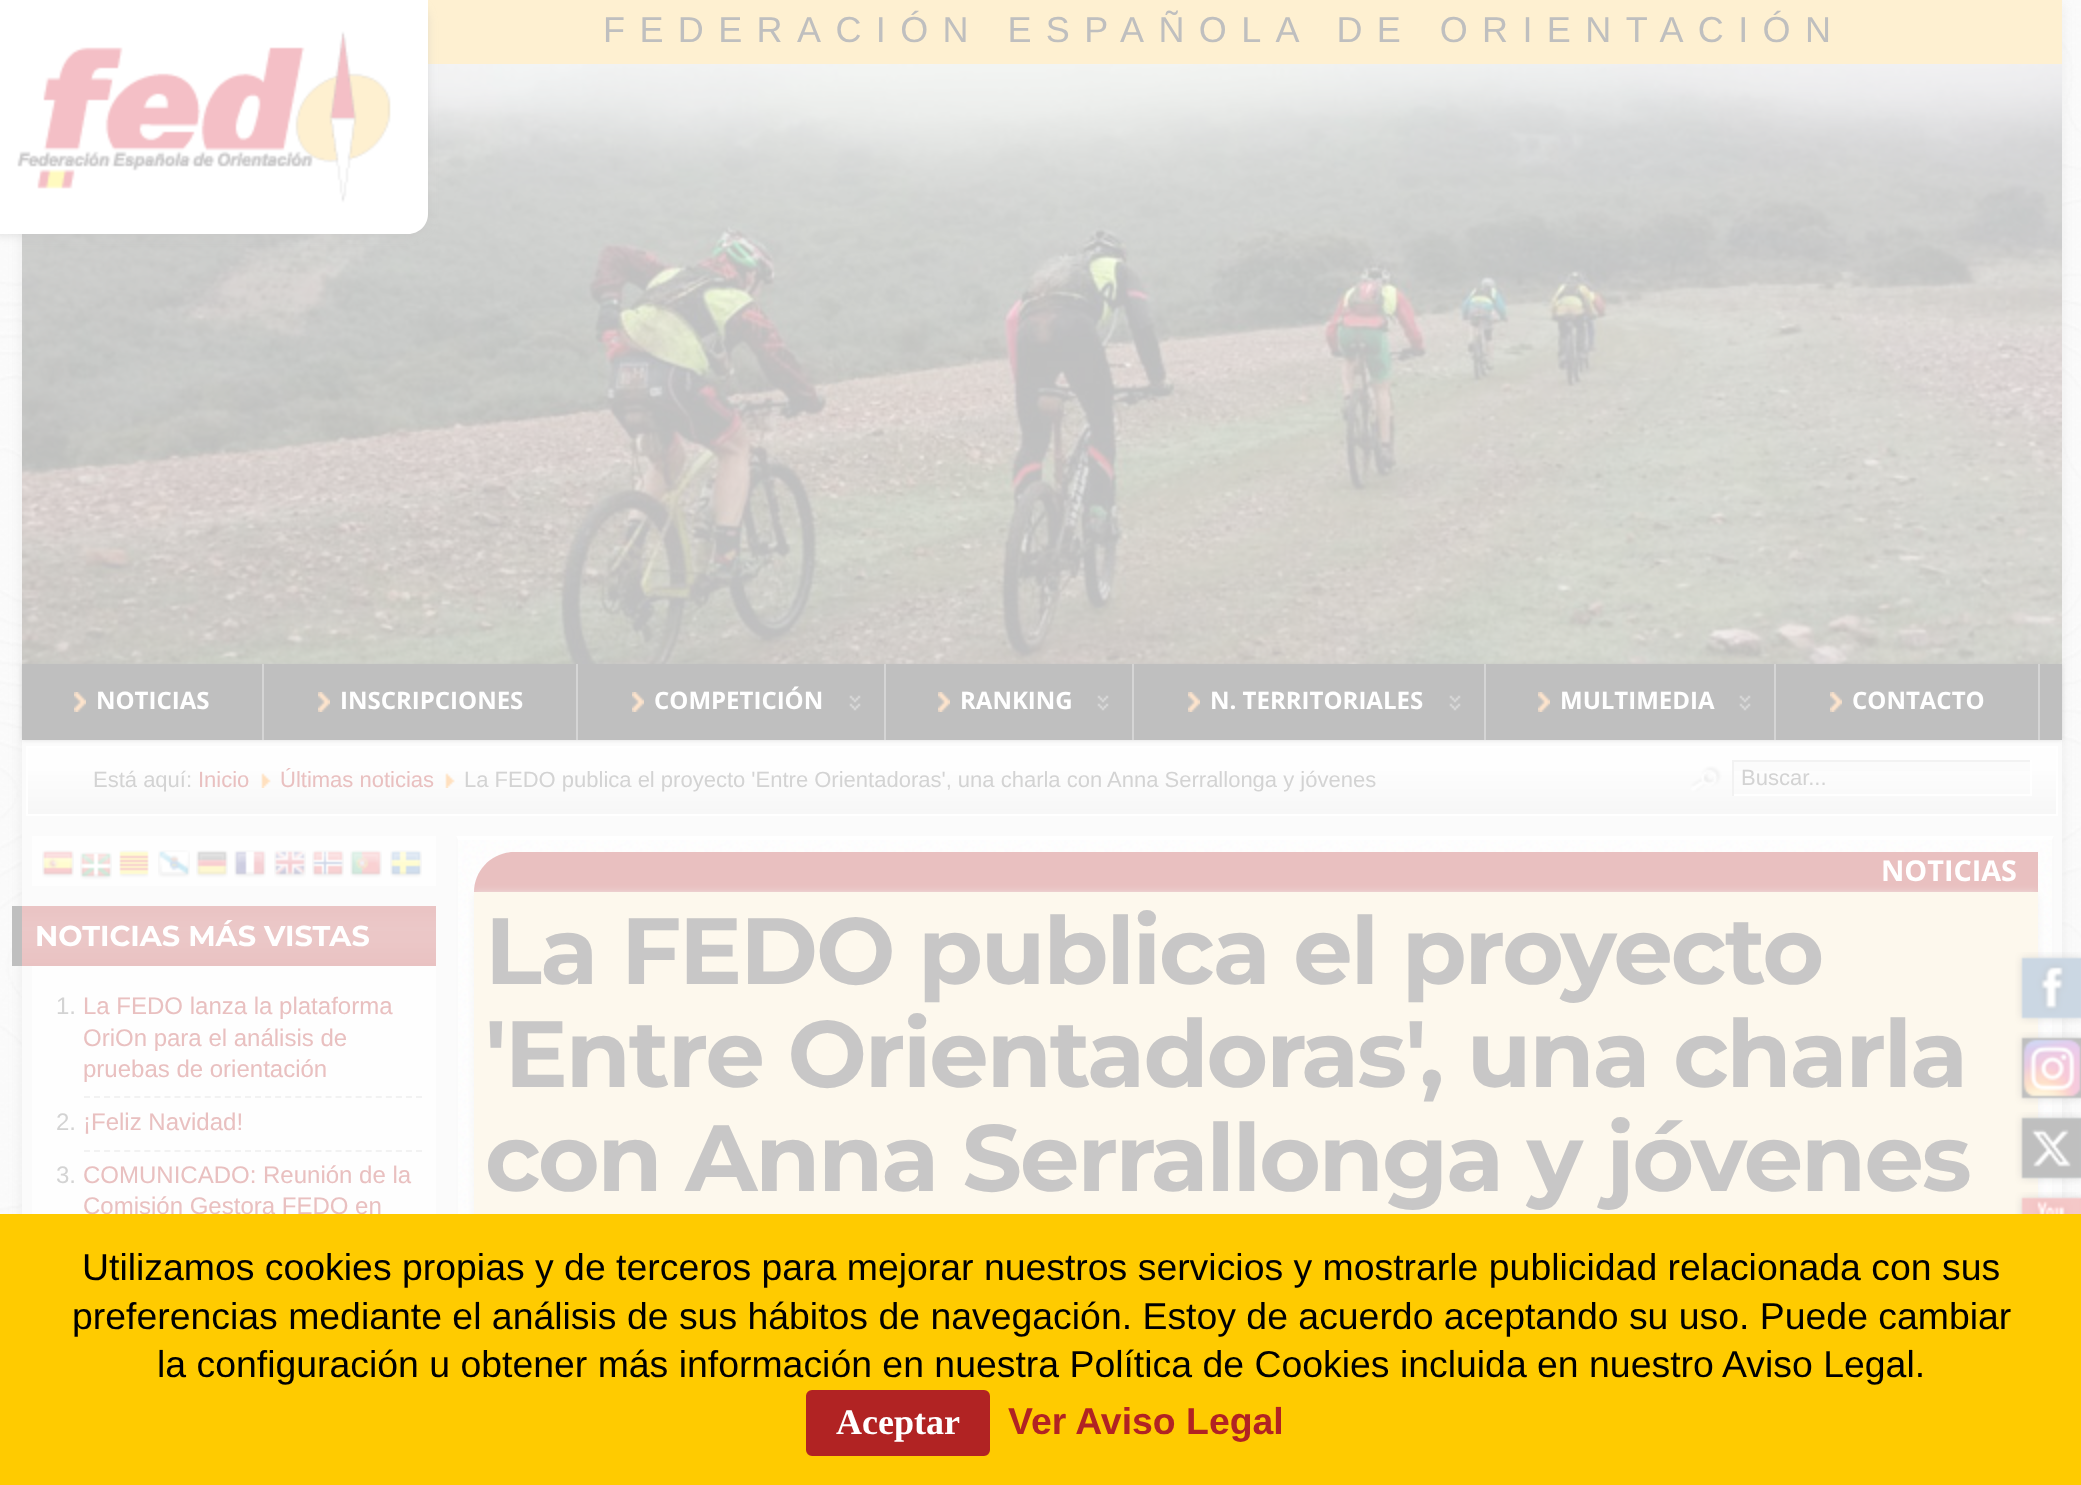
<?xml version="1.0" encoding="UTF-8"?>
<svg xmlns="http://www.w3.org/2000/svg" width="2081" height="1485">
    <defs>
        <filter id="blur1" x="-50%" y="-200%" width="200%" height="500%"><feGaussianBlur stdDeviation="6"/></filter>
        <filter id="blur2" x="-50%" y="-200%" width="200%" height="500%"><feGaussianBlur stdDeviation="5"/></filter>
        <filter id="blur3" x="-50%" y="-200%" width="200%" height="500%"><feGaussianBlur stdDeviation="2"/></filter>
        <filter id="blur4" x="-50%" y="-200%" width="200%" height="500%"><feGaussianBlur stdDeviation="4"/></filter>
    </defs>
    <rect width="100%" height="100%" fill="#FFFFFF"/>
    <image x="0" y="0" width="2081" height="1214" href="img_01.png"/>
    <rect x="20" y="4" width="2044" height="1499" fill="#BFBFBF" fill-opacity="0.2" filter="url(#blur1)"/>
    <rect x="22" y="740" width="2040" height="474" fill="#FBFBFB"/>
    <rect x="428" y="0" width="1634" height="64" fill="#FEF0D1"/>
    <image x="22" y="64" width="2040" height="600" href="img_03.png"/>
    <rect x="-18" y="2" width="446" height="234" rx="20" fill="#BFBFBF" fill-opacity="0.4" filter="url(#blur2)"/>
    <path d="M -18 0 H 428 V 214 C 428 225 419 234 408 234 H 2 C -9 234 -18 225 -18 214 Z" fill="#FFFFFF"/>
    <image x="17" y="31" width="374" height="172" href="img_02.png"/>
    <text x="603" y="42" font-family="Liberation Sans" font-size="36" letter-spacing="14.4" fill="#BFBFBF">FEDERACIÓN ESPAÑOLA DE ORIENTACIÓN</text>
    <rect x="28" y="748" width="2028" height="66" fill="#FEFEFE"/>
    <image x="28" y="771" width="2028" height="43" href="img_06.png"/>
    <rect x="27" y="747" width="2030" height="68" fill="none" stroke="#FFFFFF" stroke-width="2"/>
    <rect x="22" y="664" width="2040" height="76" fill="#BFBFBF" fill-opacity="0.5" filter="url(#blur3)"/>
    <rect x="22" y="664" width="2040" height="76" fill="#BFBFBF"/>
    <rect x="262" y="664" width="2" height="76" fill="#D5D5D5"/>
    <image x="74" y="692" width="12" height="20" href="img_04.png"/>
    <text x="96" y="709" font-family="Open Sans" font-size="24" font-weight="700" fill="#FFFFFF">NOTICIAS</text>
    <rect x="576" y="664" width="2" height="76" fill="#D5D5D5"/>
    <image x="318" y="692" width="12" height="20" href="img_04.png"/>
    <text x="340" y="709" font-family="Open Sans" font-size="24" font-weight="700" fill="#FFFFFF">INSCRIPCIONES</text>
    <rect x="884" y="664" width="2" height="76" fill="#D5D5D5"/>
    <image x="849" y="695" width="12" height="16" href="img_05.png"/>
    <image x="632" y="692" width="12" height="20" href="img_04.png"/>
    <text x="654" y="709" font-family="Open Sans" font-size="24" font-weight="700" fill="#FFFFFF">COMPETICIÓN</text>
    <rect x="1132" y="664" width="2" height="76" fill="#D5D5D5"/>
    <image x="1097" y="695" width="12" height="16" href="img_05.png"/>
    <image x="938" y="692" width="12" height="20" href="img_04.png"/>
    <text x="960" y="709" font-family="Open Sans" font-size="24" font-weight="700" fill="#FFFFFF">RANKING</text>
    <rect x="1484" y="664" width="2" height="76" fill="#D5D5D5"/>
    <image x="1449" y="695" width="12" height="16" href="img_05.png"/>
    <image x="1188" y="692" width="12" height="20" href="img_04.png"/>
    <text x="1210" y="709" font-family="Open Sans" font-size="24" font-weight="700" fill="#FFFFFF">N. TERRITORIALES</text>
    <rect x="1774" y="664" width="2" height="76" fill="#D5D5D5"/>
    <image x="1739" y="695" width="12" height="16" href="img_05.png"/>
    <image x="1538" y="692" width="12" height="20" href="img_04.png"/>
    <text x="1560" y="709" font-family="Open Sans" font-size="24" font-weight="700" fill="#FFFFFF">MULTIMEDIA</text>
    <rect x="2038" y="664" width="2" height="76" fill="#D5D5D5"/>
    <image x="1830" y="692" width="12" height="20" href="img_04.png"/>
    <text x="1852" y="709" font-family="Open Sans" font-size="24" font-weight="700" fill="#FFFFFF">CONTACTO</text>
    <text x="93" y="787" font-family="Liberation Sans" font-size="22" fill="#D3D3D3">Está aquí:</text>
    <text x="198" y="787" font-family="Liberation Sans" font-size="22" fill="#E9C0C0">Inicio</text>
    <image x="261" y="773" width="10" height="15" href="img_07.png"/>
    <text x="280" y="787" font-family="Liberation Sans" font-size="22" fill="#E9C0C0">Últimas noticias</text>
    <image x="445" y="773" width="10" height="15" href="img_07.png"/>
    <text x="464" y="787" font-family="Liberation Sans" font-size="22" fill="#D3D3D3">La FEDO publica el proyecto 'Entre Orientadoras', una charla con Anna Serrallonga y jóvenes</text>
    <image x="1690" y="766" width="32" height="26" href="img_08.png"/>
    <rect x="1734" y="762" width="296" height="9" fill="#FBFBFB"/>
    <rect x="1732" y="760" width="300" height="2" fill="#F2F2F2"/>
    <rect x="2030" y="760" width="2" height="36" fill="#FFFFFF"/>
    <rect x="1732" y="794" width="300" height="2" fill="#FFFFFF"/>
    <rect x="1732" y="760" width="2" height="36" fill="#F2F2F2"/>
    <text x="1741" y="785" font-family="Liberation Sans" font-size="22" fill="#D3D3D3">Buscar...</text>
    <rect x="32" y="836" width="404" height="50" fill="#FEFEFE"/>
    <image x="42" y="850" width="32" height="28" href="img_09.png"/>
    <image x="80" y="852" width="32" height="28" href="img_10.png"/>
    <image x="119" y="850" width="30" height="28" href="img_11.png"/>
    <image x="158" y="850" width="32" height="28" href="img_12.png"/>
    <image x="196" y="850" width="32" height="28" href="img_13.png"/>
    <image x="234" y="850" width="32" height="28" href="img_14.png"/>
    <image x="274" y="850" width="32" height="28" href="img_15.png"/>
    <image x="312" y="850" width="32" height="28" href="img_16.png"/>
    <image x="350" y="850" width="32" height="28" href="img_17.png"/>
    <image x="390" y="850" width="32" height="28" href="img_18.png"/>
    <rect x="22" y="906" width="414" height="60" fill="#E9C0C0"/>
    <image x="22" y="906" width="414" height="60" href="img_19.png"/>
    <rect x="12" y="906" width="10" height="60" fill="#BFBFBF"/>
    <text x="35" y="946" font-family="Montserrat" font-size="28.75" font-weight="700" fill="#FFFFFF">NOTICIAS MÁS VISTAS</text>
    <rect x="32" y="966" width="404" height="248" fill="#FEFEFE"/>
    <path d="M 84 1097 H 422" fill="none" stroke="#F2F2F2" stroke-width="2" stroke-dasharray="6 4.06"/>
    <text x="56" y="1014" font-family="Liberation Sans" font-size="24" fill="#D3D3D3">1.</text>
    <text font-family="Liberation Sans" font-size="24" fill="#E9C0C0">
        <tspan x="83" y="1014">La FEDO lanza la plataforma</tspan>
        <tspan x="83" y="1046">OriOn para el análisis de</tspan>
        <tspan x="83" y="1077">pruebas de orientación</tspan>
    </text>
    <path d="M 84 1151 H 422" fill="none" stroke="#F2F2F2" stroke-width="2" stroke-dasharray="6 4.06"/>
    <text x="56" y="1130" font-family="Liberation Sans" font-size="24" fill="#D3D3D3">2.</text>
    <text x="83" y="1130" font-family="Liberation Sans" font-size="24" fill="#E9C0C0">¡Feliz Navidad!</text>
    <text x="56" y="1183" font-family="Liberation Sans" font-size="24" fill="#D3D3D3">3.</text>
    <text font-family="Liberation Sans" font-size="24" fill="#E9C0C0">
        <tspan x="83" y="1183">COMUNICADO: Reunión de la</tspan>
        <tspan x="83" y="1214">Comisión Gestora FEDO en</tspan>
    </text>
    <rect x="458" y="840" width="1594" height="374" fill="#FEFEFE"/>
    <image x="456" y="836" width="1598" height="378" href="img_20.png"/>
    <path d="M 456 836 H 2054 L 2052 840 H 458 Z" fill="#FFFFFF"/>
    <path d="M 2054 836 V 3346 L 2052 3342 V 840 Z" fill="#FAFAFA"/>
    <path d="M 456 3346 V 836 L 458 840 V 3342 Z" fill="#FAFAFA"/>
    <path d="M 514 852 H 2038 V 892 H 474 C 474 870 492 852 514 852 Z" fill="#E9C0C0"/>
    <rect x="474" y="894" width="1564" height="434" fill="#F2F2F2" filter="url(#blur4)"/>
    <text x="1881" y="881" font-family="Open Sans" font-size="28.75" font-weight="700" fill="#FFFFFF">NOTICIAS</text>
    <rect x="474" y="892" width="1564" height="322" fill="#FDF8ED"/>
    <text font-family="Montserrat" font-size="94.1" font-weight="700" letter-spacing="-2" fill="#C8C7C7">
        <tspan x="485" y="984">La FEDO publica el proyecto</tspan>
        <tspan x="485" y="1087">'Entre Orientadoras', una charla</tspan>
        <tspan x="485" y="1191">con Anna Serrallonga y jóvenes</tspan>
    </text>
    <image x="2015" y="952" width="66" height="73" href="img_21.png"/>
    <image x="2015" y="1032" width="66" height="73" href="img_22.png"/>
    <image x="2015" y="1112" width="66" height="73" href="img_23.png"/>
    <image x="2015" y="1192" width="66" height="22" href="img_24.png"/>
    <rect x="0" y="1214" width="2081" height="271" fill="#FFCB00"/>
    <text x="82" y="1280" font-family="Liberation Sans" font-size="37.4" fill="#000000">Utilizamos cookies propias y de terceros para mejorar nuestros servicios y mostrarle publicidad relacionada con sus</text>
    <text x="72" y="1329" font-family="Liberation Sans" font-size="37.4" fill="#000000">preferencias mediante el análisis de sus hábitos de navegación. Estoy de acuerdo aceptando su uso. Puede cambiar</text>
    <text x="157" y="1377" font-family="Liberation Sans" font-size="37.4" fill="#000000">la configuración u obtener más información en nuestra Política de Cookies incluida en nuestro Aviso Legal.</text>
    <rect x="807" y="1391" width="182" height="64" rx="5" fill="#B12323" stroke="#B12323" stroke-width="2"/>
    <text x="836" y="1434" font-family="Liberation Serif" font-size="36" font-weight="700" fill="#FFFFFF">Aceptar</text>
    <text x="1008" y="1434" font-family="Liberation Sans" font-size="37.4" font-weight="700" fill="#B12323">Ver Aviso Legal</text>
</svg>
